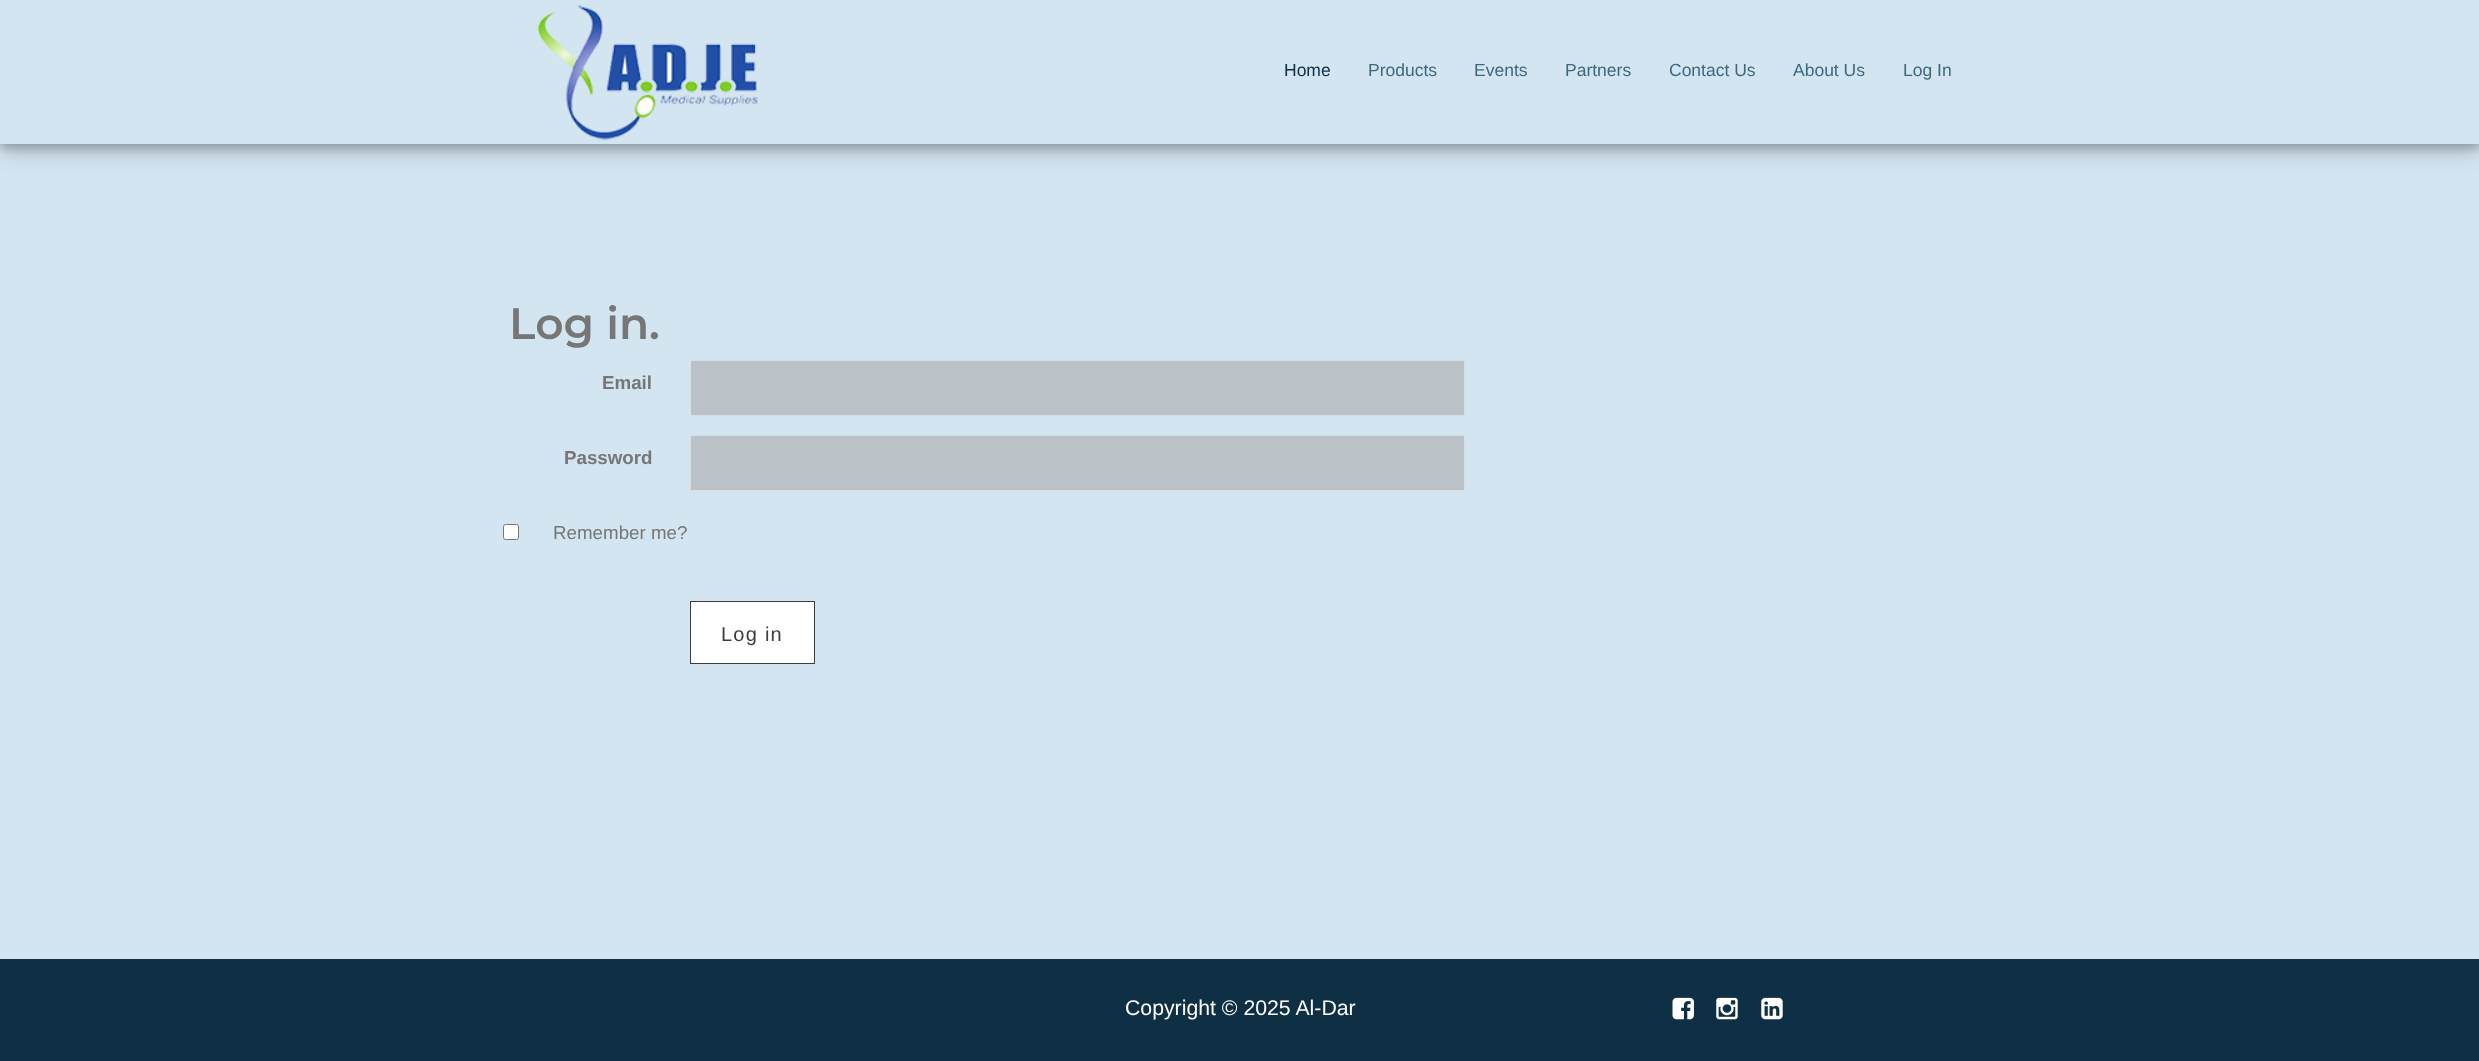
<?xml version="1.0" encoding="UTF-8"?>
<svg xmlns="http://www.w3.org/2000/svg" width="2479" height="1061">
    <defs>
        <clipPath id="clip1"><path d="M 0 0 H 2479 V 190 H 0 Z M 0 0 H 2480 V 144 H 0 Z" clip-rule="evenodd"/></clipPath>
        <filter id="blur1" x="-50%" y="-200%" width="200%" height="500%"><feGaussianBlur stdDeviation="12.5"/></filter>
        <clipPath id="clip2"><path d="M 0 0 H 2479 V 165 H 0 Z M 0 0 H 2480 V 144 H 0 Z" clip-rule="evenodd"/></clipPath>
        <filter id="blur2" x="-50%" y="-200%" width="200%" height="500%"><feGaussianBlur stdDeviation="5"/></filter>
    </defs>
    <rect width="100%" height="100%" fill="#D3E5F1"/>
    <g clip-path="url(#clip1)">
        <rect x="0" y="8" width="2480" height="143" fill="#000000" fill-opacity="0.19" filter="url(#blur1)"/>
    </g>
    <g clip-path="url(#clip2)">
        <rect x="0" y="5" width="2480" height="144" fill="#000000" fill-opacity="0.2" filter="url(#blur2)"/>
    </g>
    <image x="536" y="4" width="222" height="137" href="img_01.png"/>
    <text x="1284" y="76" font-family="Liberation Sans" font-size="17.5" fill="#0E2F44">Home</text>
    <text x="1368" y="76" font-family="Liberation Sans" font-size="17.5" fill="#3E677E">Products</text>
    <text x="1474" y="76" font-family="Liberation Sans" font-size="17.5" fill="#3E677E">Events</text>
    <text x="1565" y="76" font-family="Liberation Sans" font-size="17.5" fill="#3E677E">Partners</text>
    <text x="1669" y="76" font-family="Liberation Sans" font-size="17.5" fill="#3E677E">Contact Us</text>
    <text x="1793" y="76" font-family="Liberation Sans" font-size="17.5" fill="#3E677E">About Us</text>
    <text x="1903" y="76" font-family="Liberation Sans" font-size="17.5" fill="#3E677E">Log In</text>
    <text x="509" y="339" font-family="Montserrat" font-size="44" font-weight="600" fill="#767676">Log in.</text>
    <text x="602" y="389" font-family="Liberation Sans" font-size="18.75" font-weight="700" fill="#767676">Email</text>
    <rect x="690.5" y="360.5" width="774" height="55" fill="#BAC2C8" stroke="#DDDDDD"/>
    <text x="564" y="464" font-family="Liberation Sans" font-size="18.75" font-weight="700" fill="#767676">Password</text>
    <rect x="690.5" y="435.5" width="774" height="55" fill="#BAC2C8" stroke="#DDDDDD"/>
    <rect x="503.5" y="524.5" width="15" height="15" rx="2" fill="#FFFFFF" stroke="#767676"/>
    <text x="553" y="539" font-family="Liberation Sans" font-size="18.75" fill="#767676">Remember me?</text>
    <rect x="690.5" y="601.5" width="124" height="62" fill="#FFFFFF" stroke="#3C3C3C"/>
    <text x="721" y="641" font-family="Liberation Sans" font-size="20" letter-spacing="1.25" fill="#3C3C3C">Log in</text>
    <rect x="0" y="959" width="2479" height="102" fill="#0E2F44"/>
    <text x="1125" y="1015" font-family="Liberation Sans" font-size="21.25" fill="#FFFFFF">Copyright © 2025 Al-Dar</text>
    <image x="1672" y="997" width="22" height="23" href="img_02.png"/>
    <image x="1716" y="997" width="22" height="23" href="img_03.png"/>
    <image x="1761" y="997" width="22" height="23" href="img_04.png"/>
</svg>
